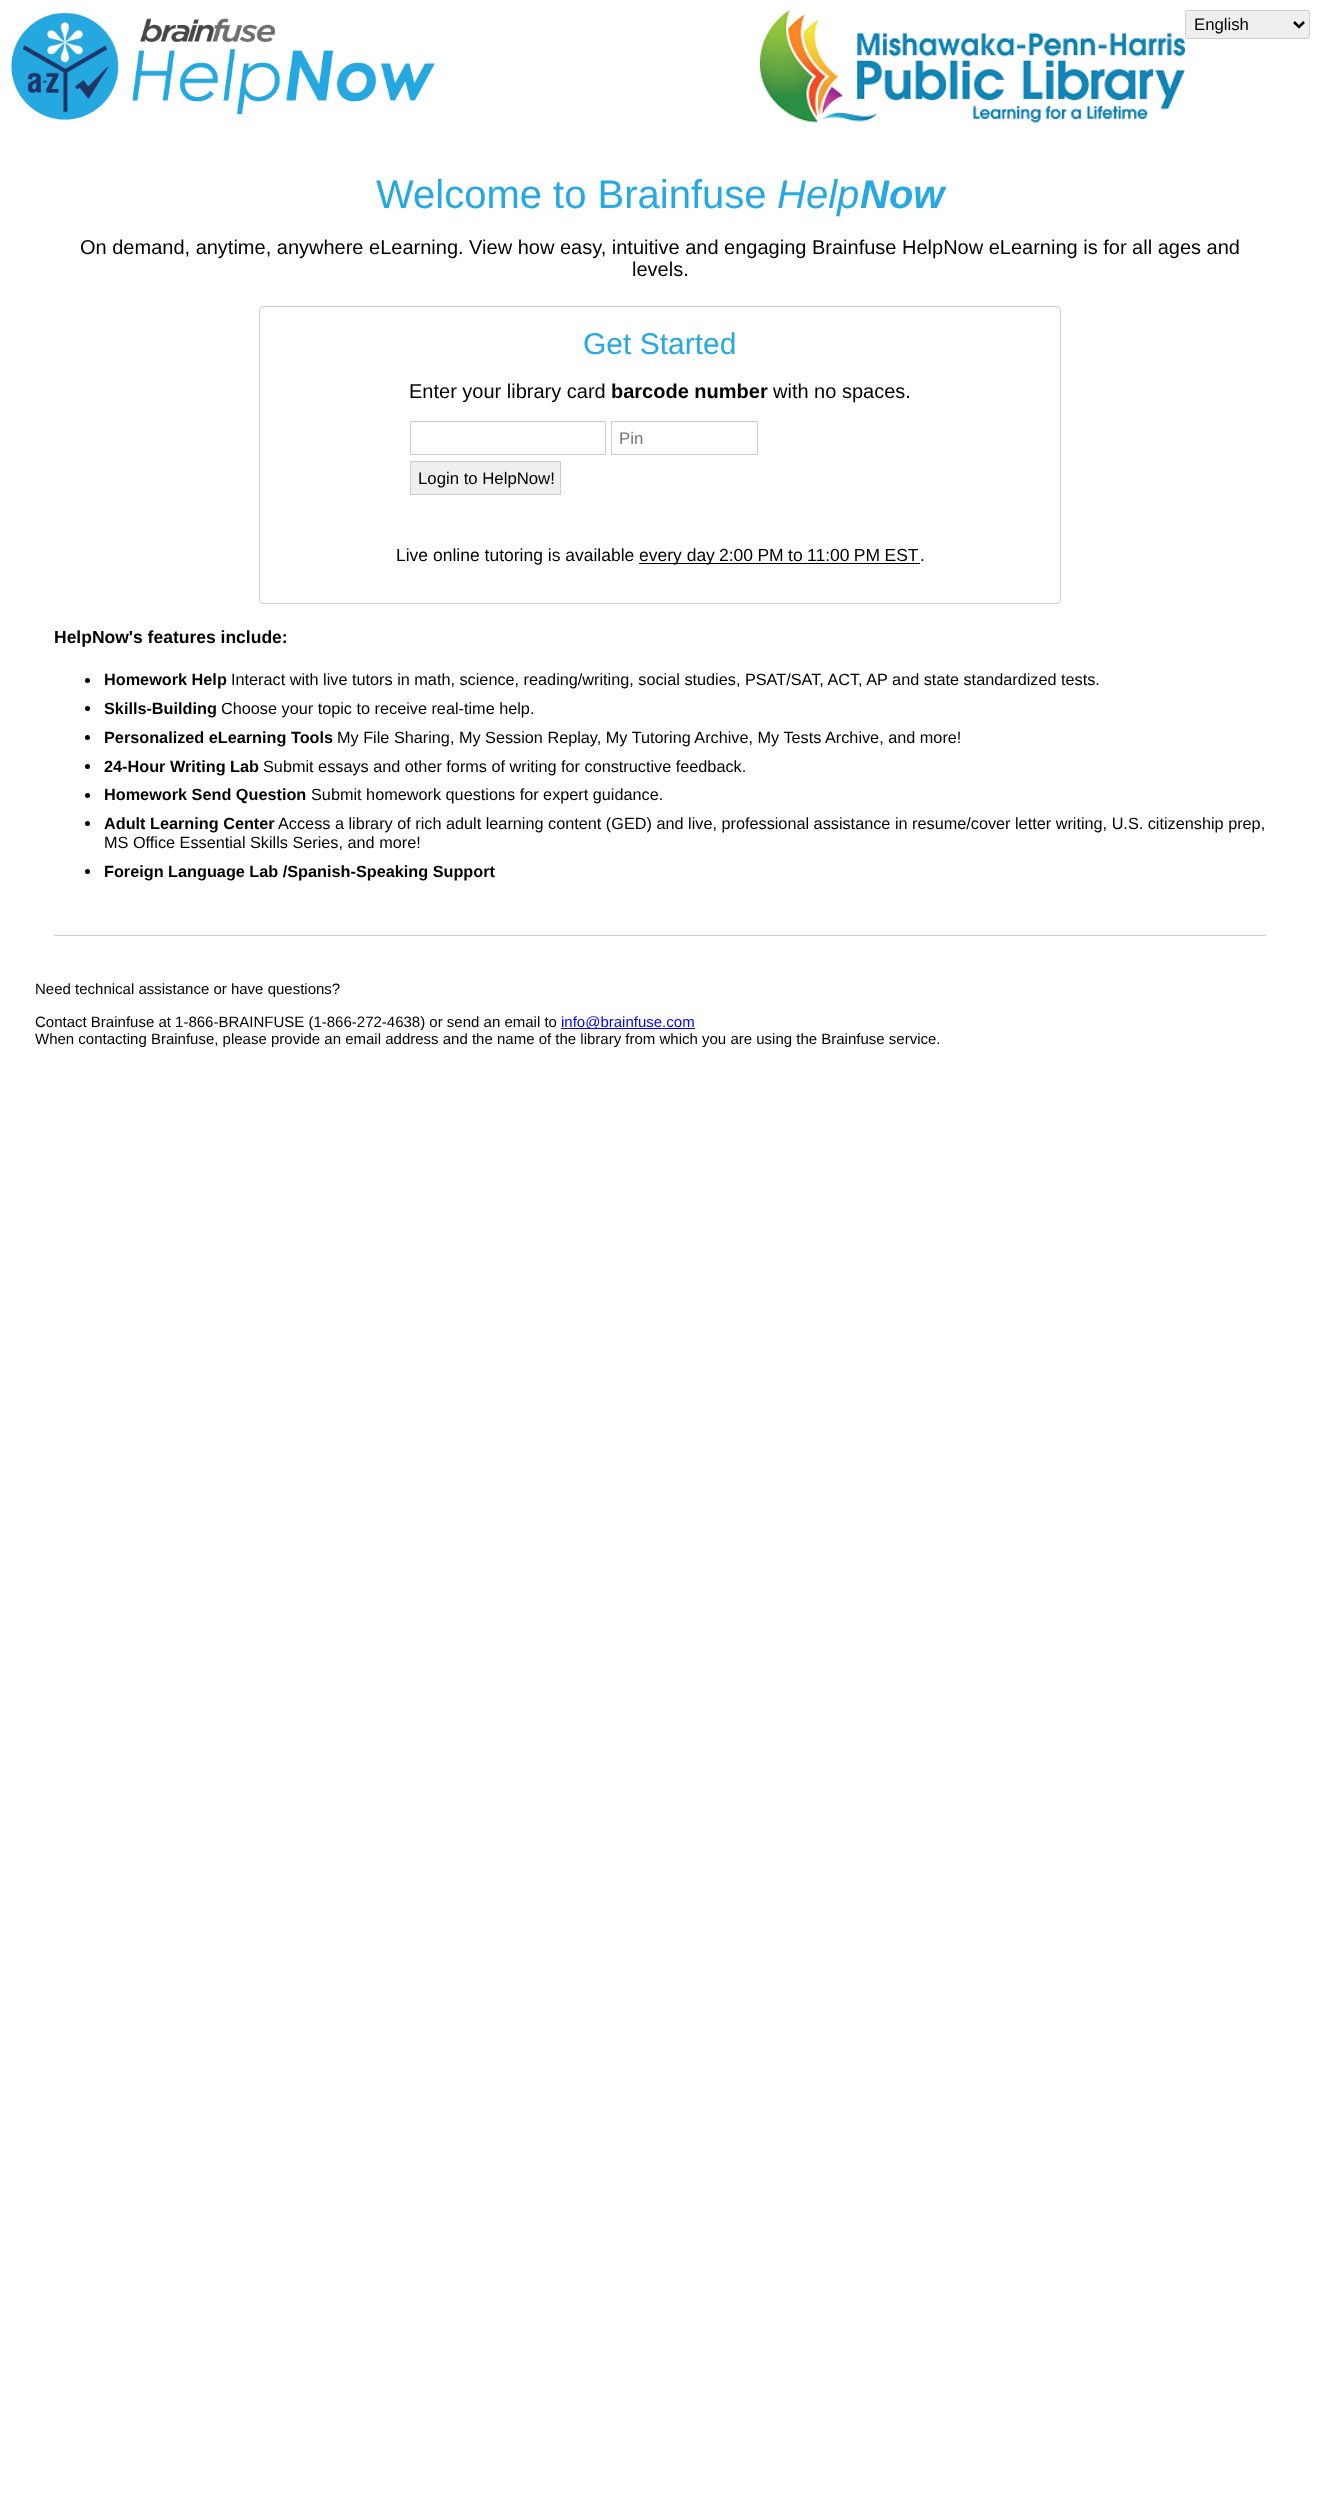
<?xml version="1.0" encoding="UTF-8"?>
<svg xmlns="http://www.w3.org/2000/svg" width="1319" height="2499">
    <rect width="100%" height="100%" fill="#FFFFFF"/>
    <image x="11" y="13" width="424" height="107" href="img_01.png"/>
    <image x="760" y="10" width="425" height="113" href="img_02.png"/>
    <rect x="1185.5" y="10.5" width="124" height="28" rx="2" fill="#EFEFEF" stroke="#CECECE"/>
    <path d="M 1294 22 L 1299 27 L 1304 22" fill="none" stroke="#000000" stroke-width="2.5"/>
    <text x="1194" y="30" font-family="Liberation Sans" font-size="16.75" fill="#000000">English</text>
    <rect x="54" y="935" width="1212" height="1" fill="#CECECE"/>
    <text x="376" y="208" font-family="Liberation Sans" font-size="40" fill="#26A9E0">Welcome to Brainfuse</text>
    <text x="777" y="208" font-family="Liberation Sans" font-size="40" font-style="italic" fill="#26A9E0">Help</text>
    <text x="860" y="208" font-family="Liberation Sans" font-size="40" font-weight="700" font-style="italic" fill="#26A9E0">Now</text>
    <text x="80" y="254" font-family="Liberation Sans" font-size="20" fill="#000000">On demand, anytime, anywhere eLearning. View how easy, intuitive and engaging Brainfuse HelpNow eLearning is for all ages and</text>
    <text x="632" y="276" font-family="Liberation Sans" font-size="20" fill="#000000">levels.</text>
    <rect x="259.5" y="306.5" width="801" height="297" rx="3.5" fill="none" stroke="#CECECE"/>
    <text x="583" y="354" font-family="Liberation Sans" font-size="30" fill="#26A9E0">Get Started</text>
    <text x="409" y="398" font-family="Liberation Sans" font-size="20" fill="#000000">Enter your library card</text>
    <text x="611" y="398" font-family="Liberation Sans" font-size="20" font-weight="700" fill="#000000">barcode number</text>
    <text x="773" y="398" font-family="Liberation Sans" font-size="20" fill="#000000">with no spaces.</text>
    <rect x="410.5" y="421.5" width="195" height="33" fill="none" stroke="#CECECE"/>
    <rect x="611.5" y="421.5" width="146" height="33" fill="none" stroke="#CECECE"/>
    <text x="619" y="444" font-family="Liberation Sans" font-size="16.75" fill="#757575">Pin</text>
    <rect x="410.5" y="461.5" width="150" height="33" fill="#EFEFEF" stroke="#CECECE"/>
    <text x="418" y="484" font-family="Liberation Sans" font-size="16.75" fill="#000000">Login to HelpNow!</text>
    <text x="396" y="561" font-family="Liberation Sans" font-size="17.5" fill="#000000">Live online tutoring is available</text>
    <rect x="639" y="563" width="281" height="1" fill="#000000"/>
    <text x="639" y="561" font-family="Liberation Sans" font-size="17.5" fill="#000000">every day</text>
    <text x="719" y="561" word-spacing="-0.5" font-family="Liberation Sans" font-size="17.5" fill="#000000">2:00 PM to 11:00 PM EST</text>
    <text x="920" y="561" font-family="Liberation Sans" font-size="17.5" fill="#000000">.</text>
    <text x="54" y="643" font-family="Liberation Sans" font-size="17.5" font-weight="700" fill="#000000">HelpNow's features include:</text>
    <circle cx="87.5" cy="680.5" r="2.5" fill="#000000"/>
    <text x="104" y="685" font-family="Liberation Sans" font-size="16.25" font-weight="700" fill="#000000">Homework Help</text>
    <text x="231" y="685" font-family="Liberation Sans" font-size="16.25" fill="#000000">Interact with live tutors in math, science, reading/writing, social studies, PSAT/SAT, ACT, AP and state standardized tests.</text>
    <circle cx="87.5" cy="708.5" r="2.5" fill="#000000"/>
    <text x="104" y="714" font-family="Liberation Sans" font-size="16.25" font-weight="700" fill="#000000">Skills-Building</text>
    <text x="221" y="714" font-family="Liberation Sans" font-size="16.25" fill="#000000">Choose your topic to receive real-time help.</text>
    <circle cx="87.5" cy="737.5" r="2.5" fill="#000000"/>
    <text x="104" y="743" font-family="Liberation Sans" font-size="16.25" font-weight="700" fill="#000000">Personalized eLearning Tools</text>
    <text x="337" y="743" font-family="Liberation Sans" font-size="16.25" fill="#000000">My File Sharing, My Session Replay, My Tutoring Archive, My Tests Archive, and more!</text>
    <circle cx="87.5" cy="766.5" r="2.5" fill="#000000"/>
    <text x="104" y="772" font-family="Liberation Sans" font-size="16.25" font-weight="700" fill="#000000">24-Hour Writing Lab</text>
    <text x="263" y="772" font-family="Liberation Sans" font-size="16.25" fill="#000000">Submit essays and other forms of writing for constructive feedback.</text>
    <circle cx="87.5" cy="795.5" r="2.5" fill="#000000"/>
    <text x="104" y="800" font-family="Liberation Sans" font-size="16.25" font-weight="700" fill="#000000">Homework Send Question</text>
    <text x="311" y="800" font-family="Liberation Sans" font-size="16.25" fill="#000000">Submit homework questions for expert guidance.</text>
    <circle cx="87.5" cy="823.5" r="2.5" fill="#000000"/>
    <text x="104" y="829" font-family="Liberation Sans" font-size="16.25" font-weight="700" fill="#000000">Adult Learning Center</text>
    <text x="278" y="829" font-family="Liberation Sans" font-size="16.25" fill="#000000">Access a library of rich adult learning content (GED) and live, professional assistance in resume/cover letter writing, U.S. citizenship prep,</text>
    <text x="104" y="848" font-family="Liberation Sans" font-size="16.25" fill="#000000">MS Office Essential Skills Series, and more!</text>
    <circle cx="87.5" cy="871.5" r="2.5" fill="#000000"/>
    <text x="104" y="877" font-family="Liberation Sans" font-size="16.25" font-weight="700" fill="#000000">Foreign Language Lab /Spanish-Speaking Support</text>
    <text x="35" y="994" font-family="Liberation Sans" font-size="15" fill="#000000">Need technical assistance or have questions?</text>
    <text x="35" y="1027" font-family="Liberation Sans" font-size="15" fill="#000000">Contact Brainfuse at 1-866-BRAINFUSE (1-866-272-4638) or send an email to</text>
    <rect x="561" y="1028" width="134" height="1" fill="#0000FF"/>
    <text x="561" y="1027" font-family="Liberation Sans" font-size="15" fill="#0000FF">info@brainfuse.com</text>
    <text x="35" y="1044" font-family="Liberation Sans" font-size="15" fill="#000000">When contacting Brainfuse, please provide an email address and the name of the library from which you are using the Brainfuse service.</text>
</svg>
